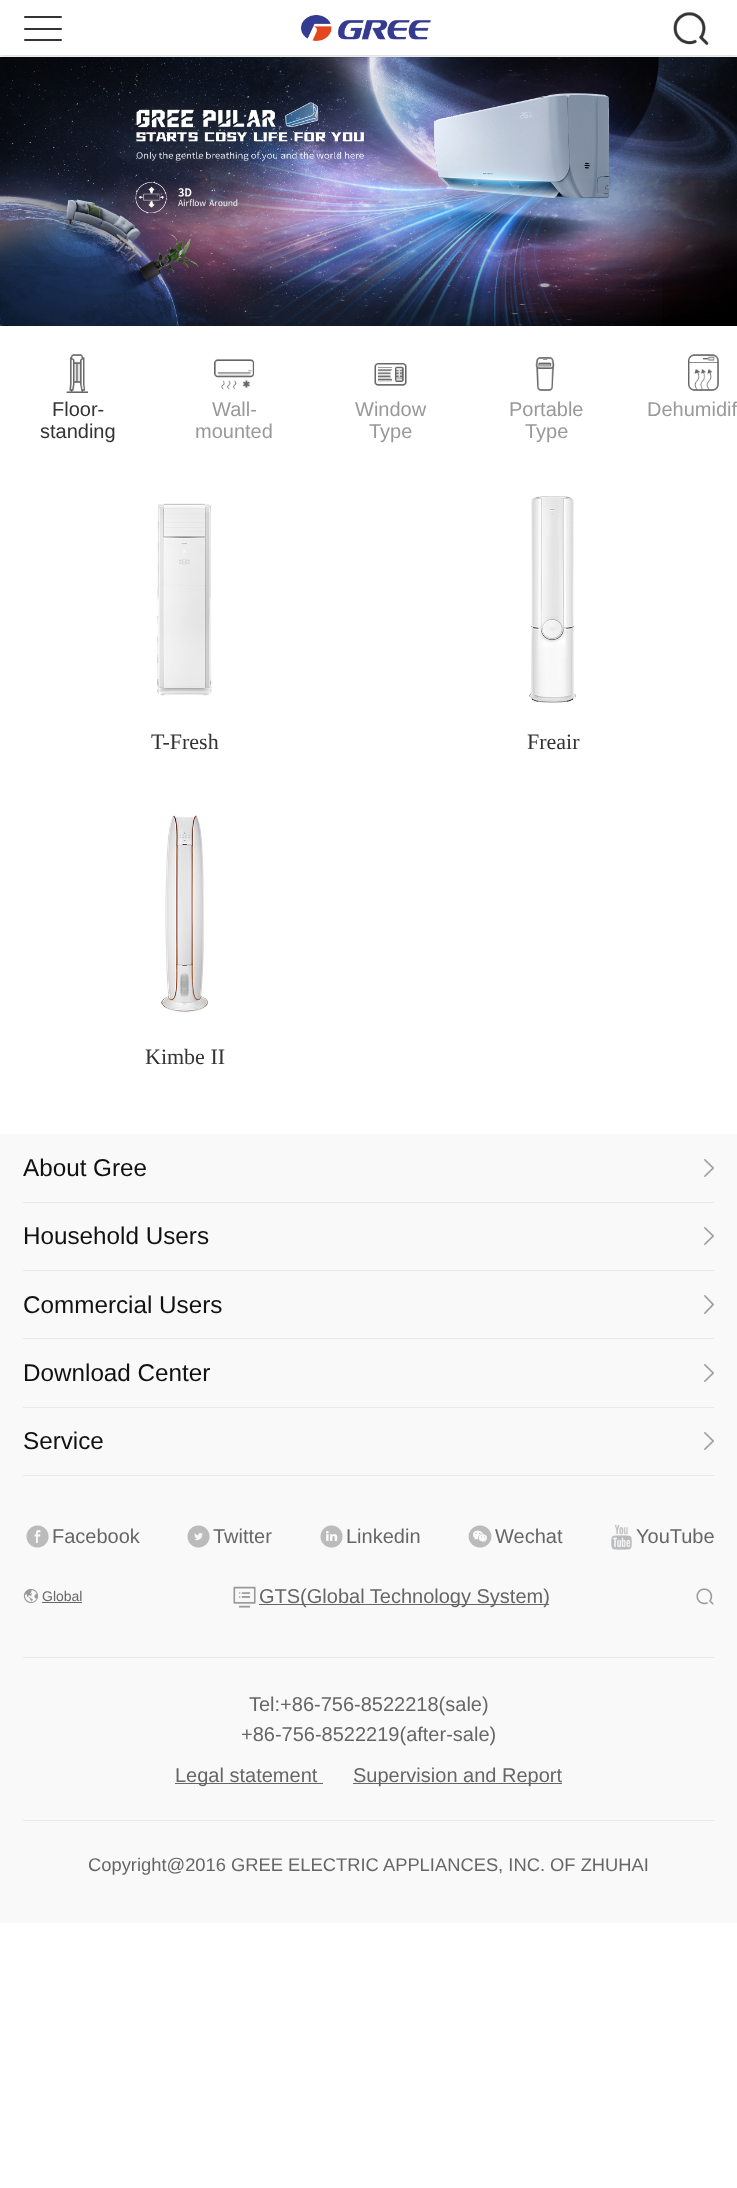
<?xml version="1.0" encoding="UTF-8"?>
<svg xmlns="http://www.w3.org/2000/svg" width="737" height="2188">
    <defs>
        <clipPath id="clip1"><rect x="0" y="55" width="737" height="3"/></clipPath>
        <filter id="blur1" x="-50%" y="-200%" width="200%" height="500%"><feGaussianBlur stdDeviation="2.5"/></filter>
    </defs>
    <rect width="100%" height="100%" fill="#FFFFFF"/>
    <image x="0" y="57" width="737" height="269" href="img_03.png"/>
    <g clip-path="url(#clip1)">
        <rect x="0" y="0" width="737" height="55" fill="#000000" fill-opacity="0.25" filter="url(#blur1)"/>
    </g>
    <rect x="24" y="16" width="38" height="2" rx="1" fill="#333333"/>
    <rect x="24" y="28" width="38" height="2" rx="1" fill="#333333"/>
    <rect x="24" y="39" width="38" height="2" rx="1" fill="#333333"/>
    <image x="301" y="15" width="130" height="26" href="img_01.png"/>
    <image x="673" y="11" width="36" height="35" href="img_02.png"/>
    <image x="66" y="354" width="22" height="39" href="img_04.png"/>
    <text x="52" y="416" font-family="Liberation Sans" font-size="20" fill="#333333">Floor-</text>
    <text x="40" y="438" font-family="Liberation Sans" font-size="20" fill="#333333">standing</text>
    <image x="214" y="359" width="41" height="31" href="img_05.png"/>
    <text x="212" y="416" font-family="Liberation Sans" font-size="20" fill="#999999">Wall-</text>
    <text x="195" y="438" font-family="Liberation Sans" font-size="20" fill="#999999">mounted</text>
    <image x="374" y="363" width="33" height="23" href="img_06.png"/>
    <text x="355" y="416" font-family="Liberation Sans" font-size="20" fill="#999999">Window</text>
    <text x="369" y="438" font-family="Liberation Sans" font-size="20" fill="#999999">Type</text>
    <image x="535" y="357" width="20" height="34" href="img_07.png"/>
    <text x="509" y="416" font-family="Liberation Sans" font-size="20" fill="#999999">Portable</text>
    <text x="525" y="438" font-family="Liberation Sans" font-size="20" fill="#999999">Type</text>
    <image x="688" y="354" width="31" height="37" href="img_08.png"/>
    <text x="647" y="416" font-family="Liberation Sans" font-size="20" fill="#999999">Dehumidif</text>
    <image x="157" y="503" width="55" height="193" href="img_09.png"/>
    <text x="151" y="749" font-family="Liberation Serif" font-size="22" fill="#333333">T-Fresh</text>
    <image x="529" y="496" width="47" height="207" href="img_10.png"/>
    <text x="527" y="749" font-family="Liberation Serif" font-size="22" fill="#333333">Freair</text>
    <image x="161" y="815" width="47" height="198" href="img_11.png"/>
    <text x="145" y="1064" font-family="Liberation Serif" font-size="22" fill="#333333">Kimbe II</text>
    <rect x="0" y="1134" width="737" height="789" fill="#F9F9F9"/>
    <rect x="23" y="1202" width="691" height="1" fill="#E9E9E9"/>
    <text x="23" y="1176" font-family="Liberation Sans" font-size="24.25" fill="#111111">About Gree</text>
    <image x="704" y="1159" width="10" height="18" href="img_12.png"/>
    <rect x="23" y="1270" width="691" height="1" fill="#E9E9E9"/>
    <text x="23" y="1244" font-family="Liberation Sans" font-size="24.25" fill="#111111">Household Users</text>
    <image x="704" y="1227" width="10" height="18" href="img_12.png"/>
    <rect x="23" y="1338" width="691" height="1" fill="#E9E9E9"/>
    <text x="23" y="1313" font-family="Liberation Sans" font-size="24.25" fill="#111111">Commercial Users</text>
    <image x="704" y="1295" width="10" height="19" href="img_13.png"/>
    <rect x="23" y="1407" width="691" height="1" fill="#E9E9E9"/>
    <text x="23" y="1381" font-family="Liberation Sans" font-size="24.25" fill="#111111">Download Center</text>
    <image x="704" y="1364" width="10" height="18" href="img_12.png"/>
    <rect x="23" y="1475" width="691" height="1" fill="#E9E9E9"/>
    <text x="23" y="1449" font-family="Liberation Sans" font-size="24.25" fill="#111111">Service</text>
    <image x="704" y="1432" width="10" height="18" href="img_12.png"/>
    <image x="26" y="1525" width="23" height="23" href="img_14.png"/>
    <text x="52" y="1543" font-family="Liberation Sans" font-size="20" fill="#666666">Facebook</text>
    <image x="187" y="1525" width="23" height="23" href="img_15.png"/>
    <text x="213" y="1543" font-family="Liberation Sans" font-size="20" fill="#666666">Twitter</text>
    <image x="320" y="1525" width="23" height="23" href="img_16.png"/>
    <text x="346" y="1543" font-family="Liberation Sans" font-size="20" fill="#666666">Linkedin</text>
    <image x="468" y="1525" width="24" height="23" href="img_17.png"/>
    <text x="495" y="1543" font-family="Liberation Sans" font-size="20" fill="#666666">Wechat</text>
    <image x="611" y="1525" width="21" height="25" href="img_18.png"/>
    <text x="636" y="1543" font-family="Liberation Sans" font-size="20" fill="#666666">YouTube</text>
    <image x="23" y="1588" width="16" height="16" href="img_19.png"/>
    <text x="42" y="1601" font-family="Liberation Sans" font-size="14" fill="#666666">Global</text>
    <rect x="42" y="1602" width="40" height="1" fill="#666666"/>
    <image x="233" y="1586" width="23" height="22" href="img_20.png"/>
    <rect x="259" y="1604" width="290" height="1" fill="#666666"/>
    <text x="259" y="1603" font-family="Liberation Sans" font-size="20" fill="#666666">GTS(Global Technology System)</text>
    <image x="696" y="1588" width="18" height="17" href="img_21.png"/>
    <rect x="23" y="1657" width="691" height="1" fill="#E9E9E9"/>
    <rect x="23" y="1820" width="691" height="1" fill="#E9E9E9"/>
    <text x="249" y="1711" font-family="Liberation Sans" font-size="20" fill="#666666">Tel:+86-756-8522218(sale)</text>
    <text x="241" y="1741" font-family="Liberation Sans" font-size="20" fill="#666666">+86-756-8522219(after-sale)</text>
    <rect x="175" y="1783" width="148" height="1" fill="#666666"/>
    <text x="175" y="1782" font-family="Liberation Sans" font-size="20" fill="#666666">Legal statement</text>
    <rect x="353" y="1783" width="209" height="1" fill="#666666"/>
    <text x="353" y="1782" font-family="Liberation Sans" font-size="20" fill="#666666">Supervision and Report</text>
    <text x="88" y="1871" font-family="Liberation Sans" font-size="18.35" fill="#666666">Copyright@2016 GREE ELECTRIC APPLIANCES, INC. OF ZHUHAI</text>
</svg>
